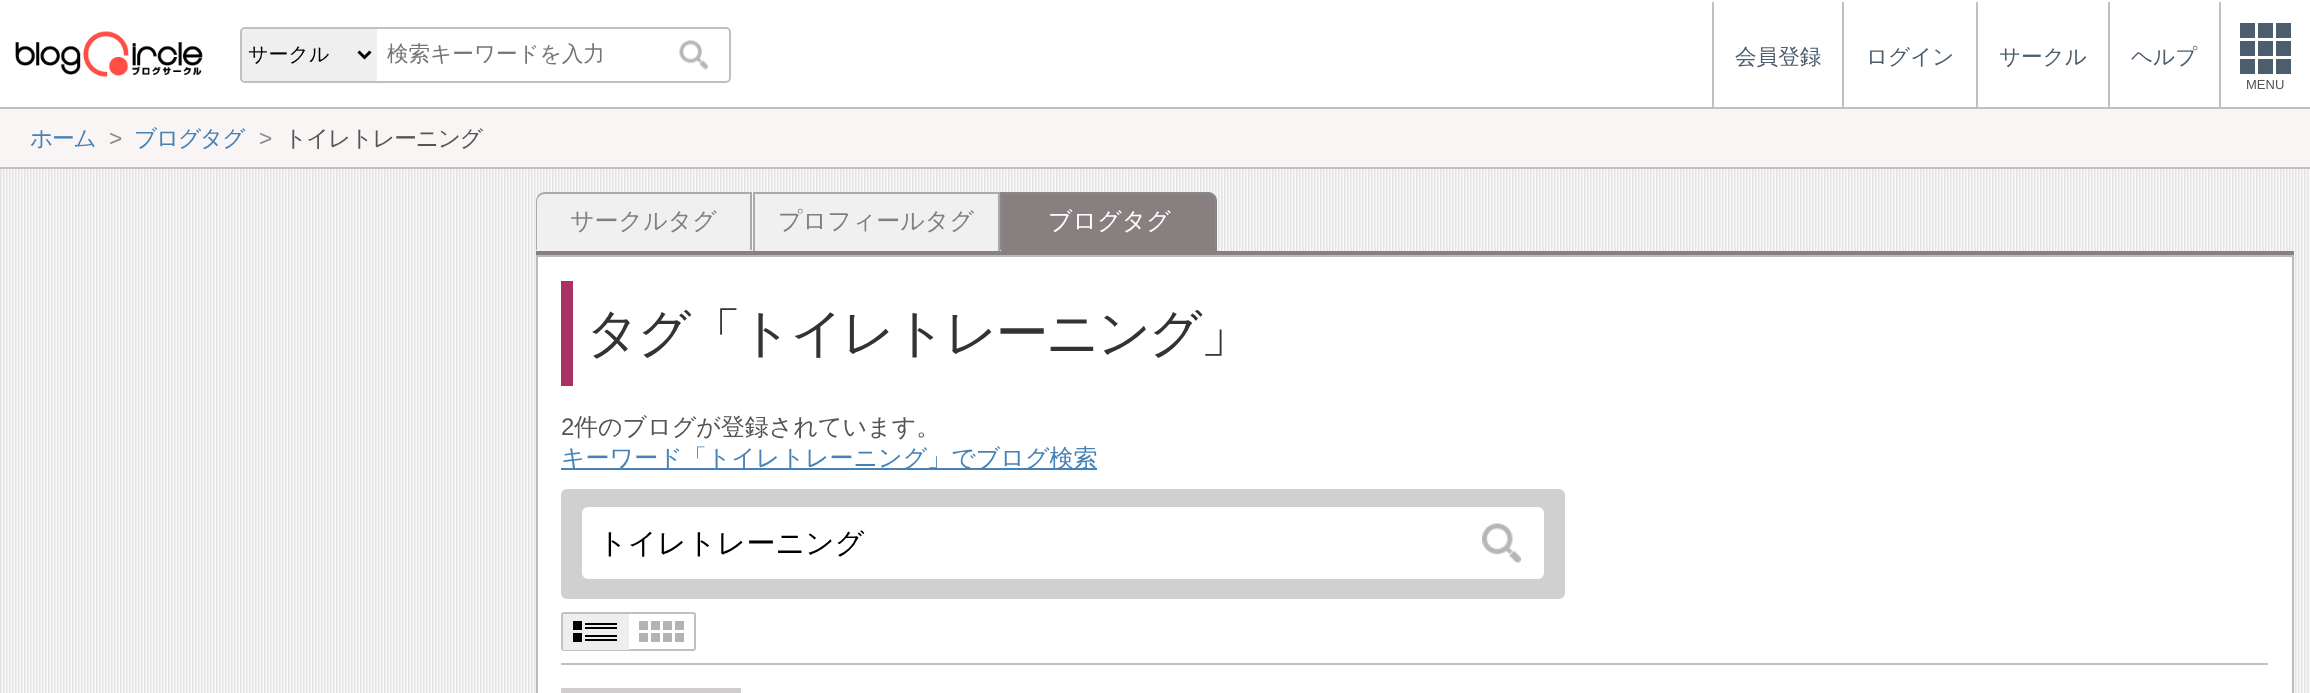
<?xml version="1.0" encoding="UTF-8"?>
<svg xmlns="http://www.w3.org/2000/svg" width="2310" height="693">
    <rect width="100%" height="100%" fill="#FFFFFF"/>
    <image x="0" y="169" width="2310" height="524" href="img_01.png"/>
    <rect x="0" y="107" width="2310" height="2" fill="#C0C0C0"/>
    <image x="15" y="31" width="188" height="46" href="img_02.png"/>
    <rect x="241" y="28" width="489" height="54" rx="4" fill="none" stroke="#C0C0C0" stroke-width="2"/>
    <path d="M 245 29 H 377 V 81 H 245 C 243.5 81 242 79.5 242 78 V 32 C 242 30.5 243.5 29 245 29 Z" fill="#EFEFEF"/>
    <path d="M 358.5 51.5 L 364.5 57.5 L 370.5 51.5" fill="none" stroke="#000000" stroke-width="3"/>
    <text x="248" y="61" font-family="WenQuanYi Zen Hei" font-size="20" font-weight="500" fill="#000000">サークル</text>
    <text x="387" y="61" font-family="WenQuanYi Zen Hei" font-size="21.6" font-weight="500" fill="#757575">検索キーワードを入力</text>
    <image x="679" y="40" width="29" height="30" href="img_03.png"/>
    <rect x="1712" y="2" width="2" height="105" fill="#C0C0C0"/>
    <text x="1735" y="64" font-family="WenQuanYi Zen Hei" font-size="21.6" font-weight="500" fill="#4C5E6D">会員登録</text>
    <rect x="1842" y="2" width="2" height="105" fill="#C0C0C0"/>
    <text x="1866" y="64" font-family="WenQuanYi Zen Hei" font-size="21.6" font-weight="500" fill="#4C5E6D">ログイン</text>
    <rect x="1976" y="2" width="2" height="105" fill="#C0C0C0"/>
    <text x="1999" y="64" font-family="WenQuanYi Zen Hei" font-size="21.6" font-weight="500" fill="#4C5E6D">サークル</text>
    <rect x="2108" y="2" width="2" height="105" fill="#C0C0C0"/>
    <text x="2131" y="64" font-family="WenQuanYi Zen Hei" font-size="21.6" font-weight="500" fill="#4C5E6D">ヘルプ</text>
    <rect x="2219" y="2" width="2" height="105" fill="#C0C0C0"/>
    <rect x="2240" y="23" width="51" height="15" fill="#4C5E6D"/>
    <rect x="2273" y="23" width="3" height="15" fill="#FFFFFF"/>
    <rect x="2255" y="23" width="3" height="15" fill="#FFFFFF"/>
    <rect x="2240" y="41" width="51" height="15" fill="#4C5E6D"/>
    <rect x="2273" y="41" width="3" height="15" fill="#FFFFFF"/>
    <rect x="2255" y="41" width="3" height="15" fill="#FFFFFF"/>
    <rect x="2240" y="59" width="51" height="15" fill="#4C5E6D"/>
    <rect x="2273" y="59" width="3" height="15" fill="#FFFFFF"/>
    <rect x="2255" y="59" width="3" height="15" fill="#FFFFFF"/>
    <text x="2246" y="89" font-family="Liberation Sans" font-size="13" fill="#555555">MENU</text>
    <rect x="0" y="109" width="2310" height="58" fill="#FAF5F5"/>
    <rect x="0" y="167" width="2310" height="2" fill="#C0C0C0"/>
    <text x="30" y="146" font-family="WenQuanYi Zen Hei" font-size="22.75" font-weight="500" letter-spacing="-1.25" fill="#4682B4">ホーム</text>
    <text x="109" y="146" font-family="Liberation Sans" font-size="22.75" letter-spacing="-1.25" fill="#888888">&gt;</text>
    <text x="134" y="146" font-family="WenQuanYi Zen Hei" font-size="22.75" font-weight="500" letter-spacing="-1.25" fill="#4682B4">ブログタグ</text>
    <text x="259" y="146" font-family="Liberation Sans" font-size="22.75" letter-spacing="-1.25" fill="#888888">&gt;</text>
    <text x="284" y="146" font-family="WenQuanYi Zen Hei" font-size="22.75" font-weight="500" letter-spacing="-1.25" fill="#555555">トイレトレーニング</text>
    <rect x="536" y="251" width="1758" height="4" fill="#888080"/>
    <path d="M 545 192 H 752 V 251 H 536 V 201 C 536 196 540 192 545 192 Z" fill="#F0F0F0"/>
    <path d="M 545 192 H 752 V 250 H 536 V 202 C 536 196 540 192 545 192 Z M 545 194 H 750 V 250 H 537 V 202 C 537 197 541 194 545 194 Z" fill="#AAAAAA" fill-rule="evenodd"/>
    <text x="570" y="229" font-family="WenQuanYi Zen Hei" font-size="24" font-weight="500" fill="#808080">サークルタグ</text>
    <rect x="755" y="194" width="242" height="57" fill="#F0F0F0"/>
    <rect x="753" y="192" width="246" height="2" fill="#AAAAAA"/>
    <rect x="998" y="192" width="2" height="59" fill="#AAAAAA"/>
    <rect x="753" y="192" width="2" height="59" fill="#AAAAAA"/>
    <text x="778" y="229" font-family="WenQuanYi Zen Hei" font-size="24" font-weight="500" fill="#808080">プロフィールタグ</text>
    <path d="M 1001 192 H 1208 C 1213 192 1217 196 1217 201 V 251 H 1001 Z" fill="#888080"/>
    <path d="M 1000 192 H 1207 C 1212 192 1216 196 1216 202 V 250 H 1000 Z M 1002 194 H 1207 C 1211 194 1215 197 1215 202 V 250 H 1002 Z" fill="#888888" fill-rule="evenodd"/>
    <text x="1048" y="229" font-family="WenQuanYi Zen Hei" font-size="24" font-weight="500" fill="#FFFFFF">ブログタグ</text>
    <rect x="537" y="256" width="1756" height="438" fill="#FFFFFF" stroke="#BBBBBB" stroke-width="2"/>
    <rect x="561" y="281" width="12" height="105" fill="#AB3063"/>
    <text x="586" y="351" font-family="WenQuanYi Zen Hei" font-size="52.75" font-weight="500" letter-spacing="-2.6" fill="#333333">タグ「トイレトレーニング」</text>
    <text x="561" y="435" font-family="Liberation Sans" font-size="24" fill="#555555">2</text>
    <text x="574" y="435" font-family="WenQuanYi Zen Hei" font-size="24" font-weight="500" fill="#555555">件のブログが登録されています。</text>
    <rect x="561" y="468" width="536" height="2" fill="#4682B4"/>
    <text x="561" y="466" font-family="WenQuanYi Zen Hei" font-size="24" font-weight="500" fill="#4682B4">キーワード「トイレトレーニング」でブログ検索</text>
    <rect x="561" y="489" width="1004" height="110" rx="6" fill="#D0D0D0"/>
    <rect x="583" y="508" width="960" height="70" rx="5" fill="#FFFFFF" stroke="#FFFFFF" stroke-width="2"/>
    <text x="598" y="553" font-family="WenQuanYi Zen Hei" font-size="29" font-weight="500" fill="#000000">トイレトレーニング</text>
    <image x="1482" y="523" width="39" height="40" href="img_04.png"/>
    <rect x="562" y="613" width="133" height="37" rx="2" fill="none" stroke="#C0C0C0" stroke-width="2"/>
    <rect x="563" y="614" width="66" height="36" fill="#EEEEEE"/>
    <rect x="573" y="621" width="9" height="9" fill="#000000"/>
    <rect x="585" y="623" width="32" height="2" fill="#000000"/>
    <rect x="585" y="627" width="32" height="2" fill="#000000"/>
    <rect x="573" y="633" width="9" height="9" fill="#000000"/>
    <rect x="585" y="635" width="32" height="2" fill="#000000"/>
    <rect x="585" y="639" width="32" height="2" fill="#000000"/>
    <rect x="639" y="621" width="9" height="9" fill="#B3B3B3"/>
    <rect x="651" y="621" width="9" height="9" fill="#B3B3B3"/>
    <rect x="663" y="621" width="9" height="9" fill="#B3B3B3"/>
    <rect x="675" y="621" width="9" height="9" fill="#B3B3B3"/>
    <rect x="639" y="633" width="9" height="9" fill="#B3B3B3"/>
    <rect x="651" y="633" width="9" height="9" fill="#B3B3B3"/>
    <rect x="663" y="633" width="9" height="9" fill="#B3B3B3"/>
    <rect x="675" y="633" width="9" height="9" fill="#B3B3B3"/>
    <rect x="561" y="663" width="1707" height="2" fill="#C0C0C0"/>
    <rect x="561" y="688" width="180" height="5" fill="#CFCDCD"/>
</svg>
